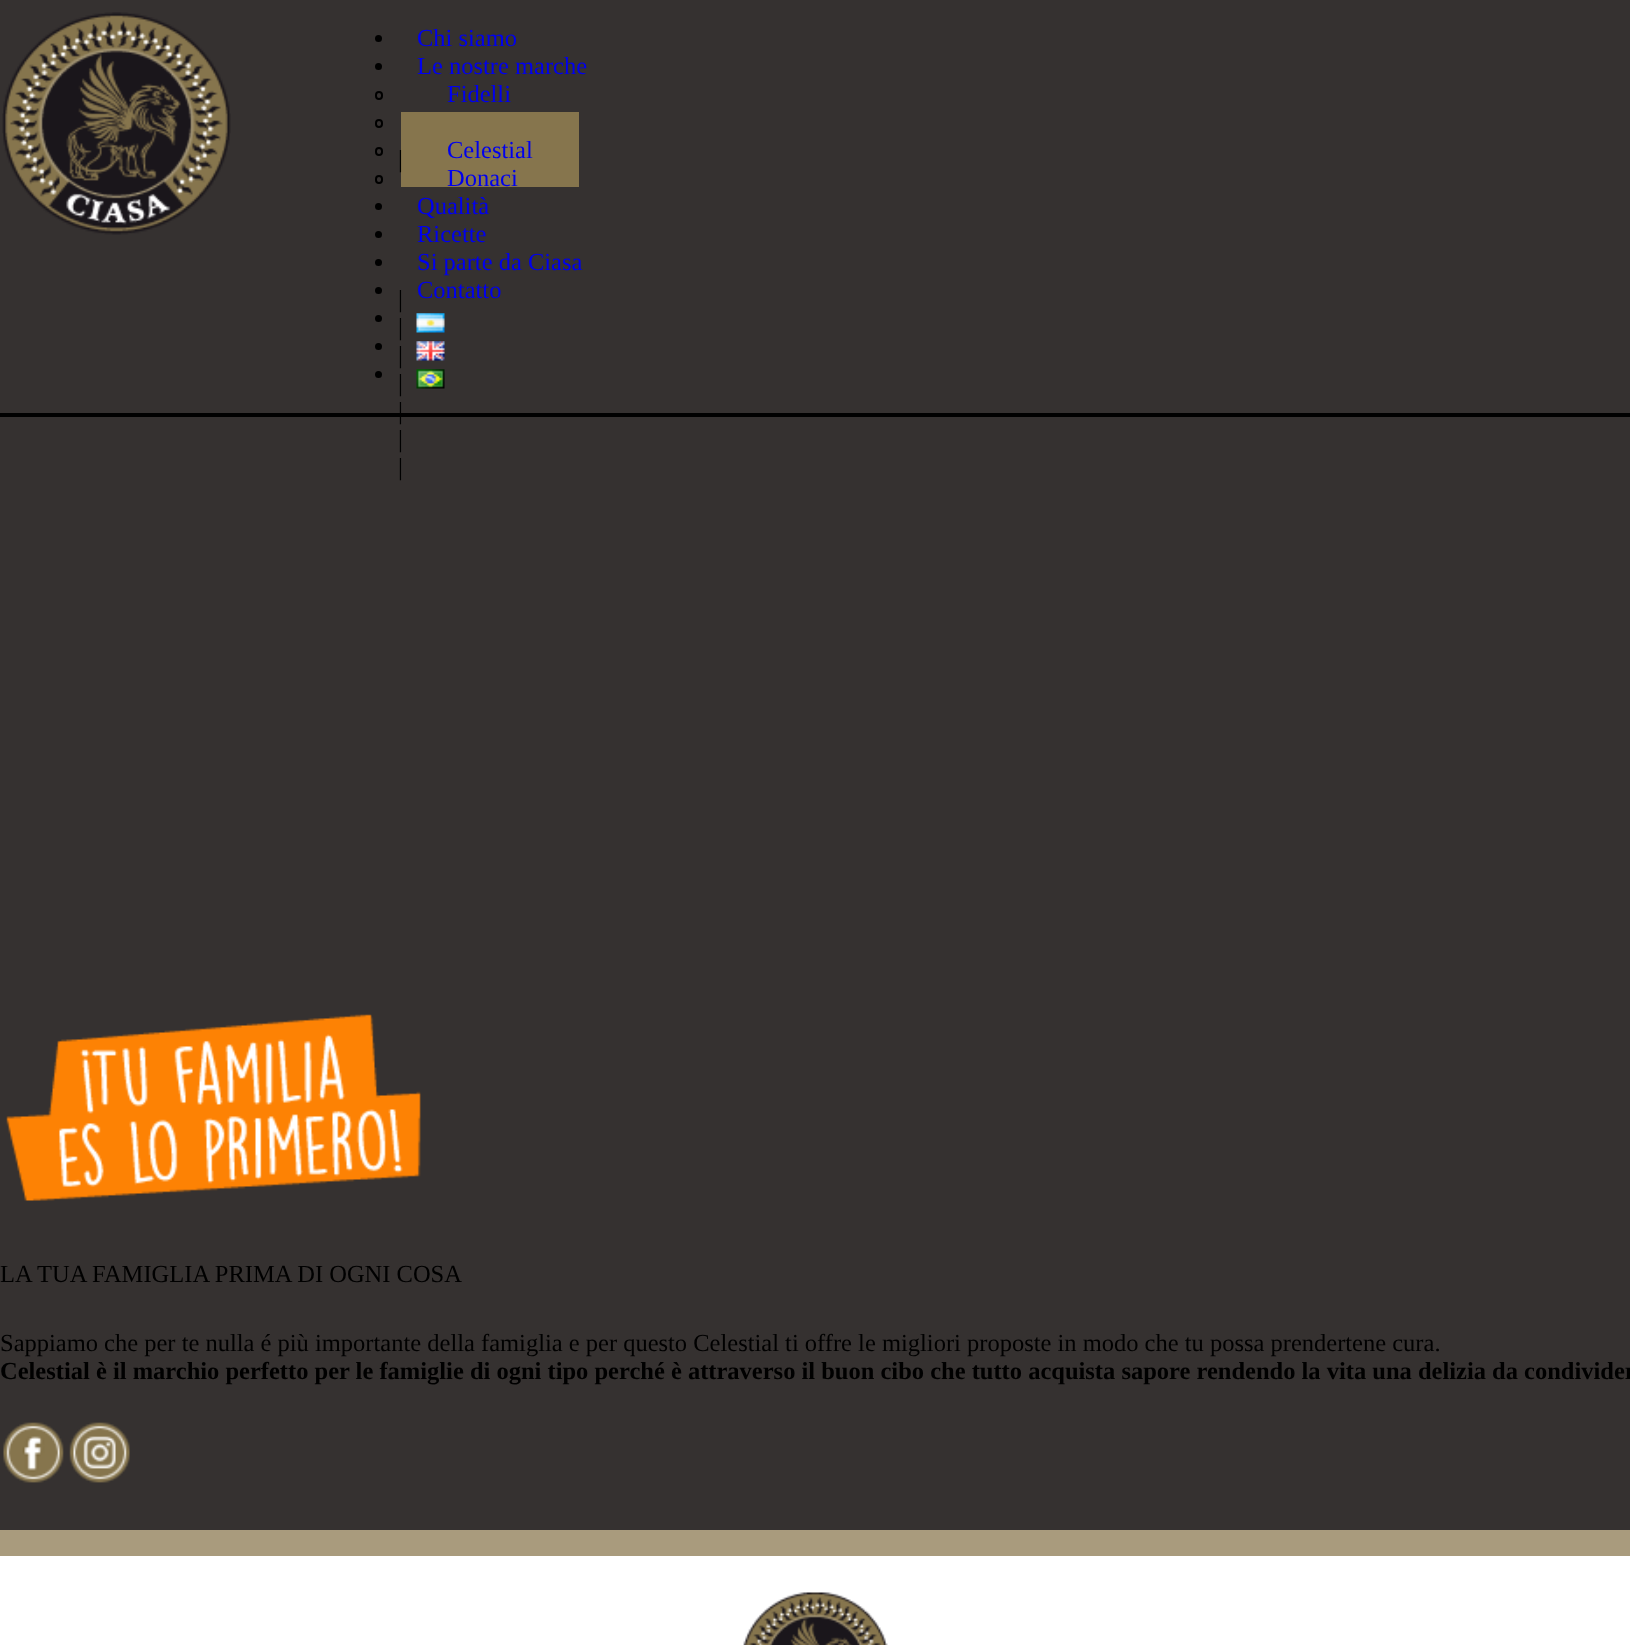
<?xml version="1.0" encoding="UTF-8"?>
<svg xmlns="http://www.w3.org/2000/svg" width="1630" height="1645">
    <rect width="100%" height="100%" fill="#353130"/>
    <rect x="0" y="413" width="1630" height="4" fill="#000000"/>
    <image x="2" y="12" width="229" height="223" href="img_01.png"/>
    <circle cx="378.5" cy="38.5" r="3.5" fill="#000000"/>
    <text x="417" y="46" font-family="Liberation Serif" font-size="24.5" fill="#0000EE">Chi siamo</text>
    <circle cx="378.5" cy="66.5" r="3.5" fill="#000000"/>
    <text x="417" y="74" font-family="Liberation Serif" font-size="24.5" fill="#0000EE">Le nostre marche</text>
    <rect x="401" y="112" width="178" height="75" fill="#86754D"/>
    <text x="398" y="167" font-family="Liberation Serif" font-size="24.5" fill="#000000">|</text>
    <rect x="376" y="92" width="6" height="7" rx="3" fill="none" stroke="#000000" stroke-width="2"/>
    <text x="447" y="102" font-family="Liberation Serif" font-size="24.5" fill="#0000EE">Fidelli</text>
    <rect x="376" y="120" width="6" height="7" rx="3" fill="none" stroke="#000000" stroke-width="2"/>
    <rect x="376" y="148" width="6" height="7" rx="3" fill="none" stroke="#000000" stroke-width="2"/>
    <text x="447" y="158" font-family="Liberation Serif" font-size="24.5" fill="#0000EE">Celestial</text>
    <rect x="376" y="176" width="6" height="7" rx="3" fill="none" stroke="#000000" stroke-width="2"/>
    <text x="447" y="186" font-family="Liberation Serif" font-size="24.5" fill="#0000EE">Donaci</text>
    <circle cx="378.5" cy="206.5" r="3.5" fill="#000000"/>
    <text x="417" y="214" font-family="Liberation Serif" font-size="24.5" fill="#0000EE">Qualità</text>
    <text x="398" y="307" font-family="Liberation Serif" font-size="24.5" fill="#000000">|</text>
    <circle cx="378.5" cy="234.5" r="3.5" fill="#000000"/>
    <text x="417" y="242" font-family="Liberation Serif" font-size="24.5" fill="#0000EE">Ricette</text>
    <text x="398" y="335" font-family="Liberation Serif" font-size="24.5" fill="#000000">|</text>
    <circle cx="378.5" cy="262.5" r="3.5" fill="#000000"/>
    <text x="417" y="270" font-family="Liberation Serif" font-size="24.5" fill="#0000EE">Si parte da Ciasa</text>
    <text x="398" y="363" font-family="Liberation Serif" font-size="24.5" fill="#000000">|</text>
    <circle cx="378.5" cy="290.5" r="3.5" fill="#000000"/>
    <text x="417" y="298" font-family="Liberation Serif" font-size="24.5" fill="#0000EE">Contatto</text>
    <text x="398" y="391" font-family="Liberation Serif" font-size="24.5" fill="#000000">|</text>
    <circle cx="378.5" cy="318.5" r="3.5" fill="#000000"/>
    <image x="416" y="313" width="29" height="20" href="img_02.png"/>
    <text x="398" y="419" font-family="Liberation Serif" font-size="24.5" fill="#000000">|</text>
    <circle cx="378.5" cy="346.5" r="3.5" fill="#000000"/>
    <image x="416" y="341" width="29" height="20" href="img_03.png"/>
    <text x="398" y="447" font-family="Liberation Serif" font-size="24.5" fill="#000000">|</text>
    <circle cx="378.5" cy="374.5" r="3.5" fill="#000000"/>
    <image x="416" y="369" width="29" height="20" href="img_04.png"/>
    <text x="398" y="475" font-family="Liberation Serif" font-size="24.5" fill="#000000">|</text>
    <image x="6" y="1014" width="415" height="187" href="img_05.png"/>
    <text x="0" y="1282" font-family="Liberation Serif" font-size="24.5" fill="#000000">LA TUA FAMIGLIA PRIMA DI OGNI COSA</text>
    <text x="0" y="1351" font-family="Liberation Serif" font-size="24.5" fill="#000000">Sappiamo che per te nulla é più importante della famiglia e per questo Celestial ti offre le migliori proposte in modo che tu possa prendertene cura.</text>
    <text x="0" y="1379" font-family="Liberation Serif" font-size="24.5" font-weight="700" fill="#000000">Celestial è il marchio perfetto per le famiglie di ogni tipo perché è attraverso il buon cibo che tutto acquista sapore rendendo la vita una delizia da condivider</text>
    <image x="3" y="1422" width="61" height="61" href="img_06.png"/>
    <image x="69" y="1422" width="61" height="61" href="img_07.png"/>
    <rect x="0" y="1530" width="1630" height="26" fill="#A99B7D"/>
    <rect x="0" y="1556" width="1630" height="89" fill="#FFFFFF"/>
    <image x="743" y="1592" width="145" height="53" href="img_08.png"/>
</svg>
